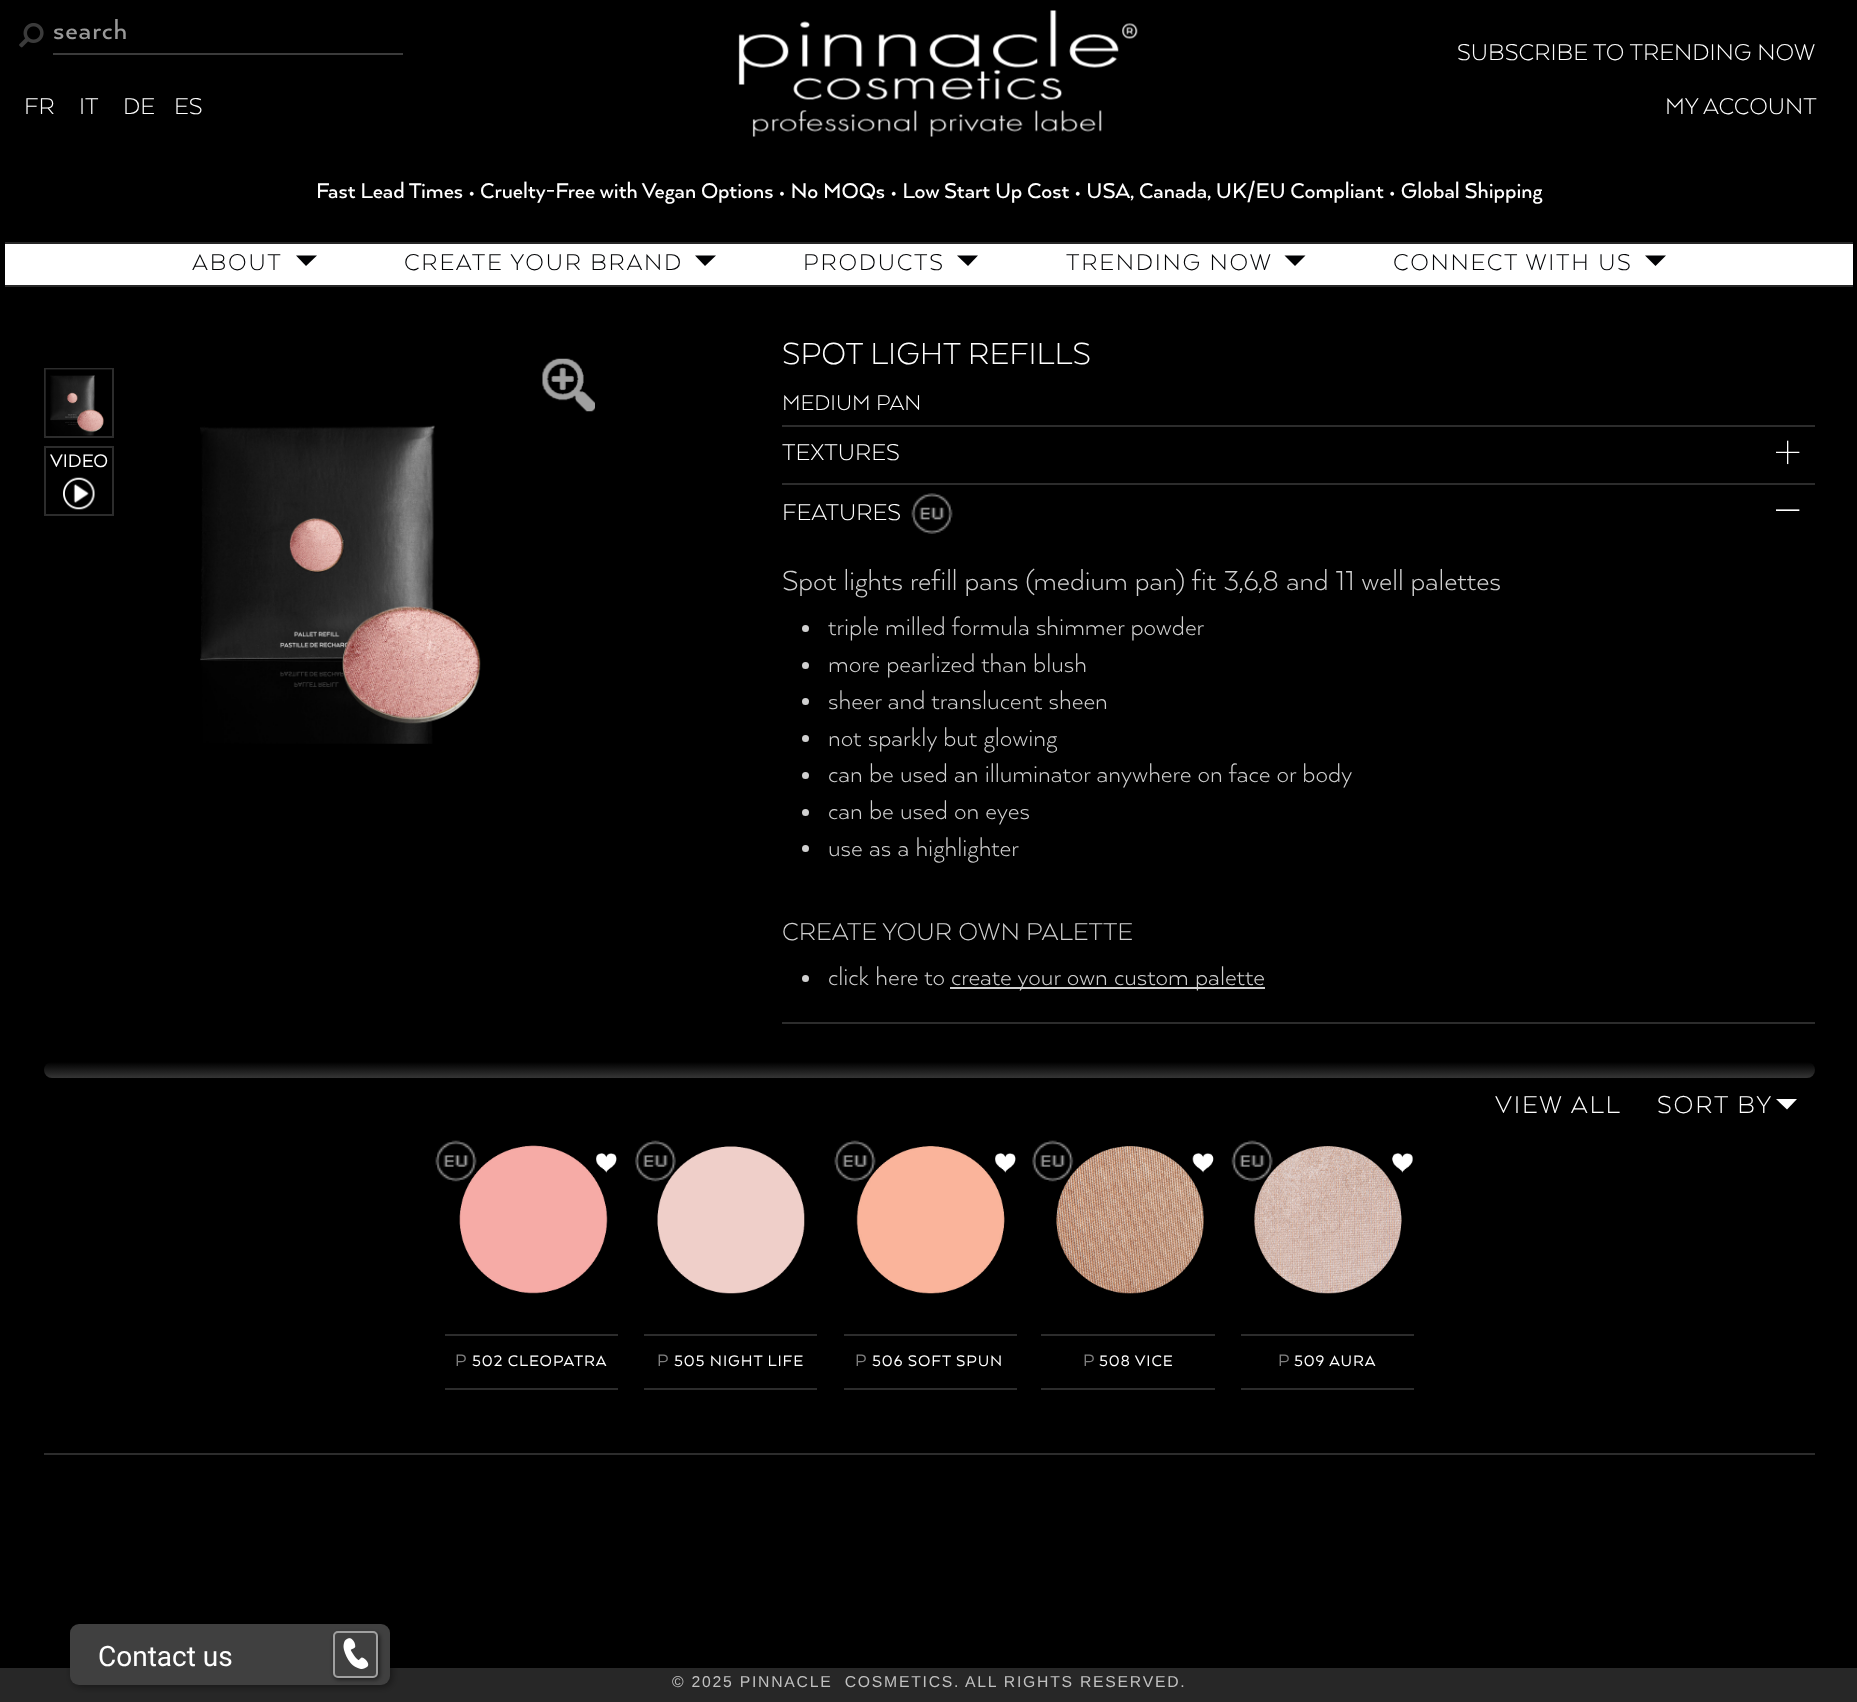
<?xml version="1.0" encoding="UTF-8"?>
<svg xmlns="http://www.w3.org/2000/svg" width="1857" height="1702">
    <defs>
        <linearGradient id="g1" gradientUnits="userSpaceOnUse" x1="929" y1="1062" x2="929" y2="1078"><stop offset="0" stop-color="#000000"/><stop offset="1" stop-color="#353535"/></linearGradient>
        <filter id="blur1" x="-50%" y="-200%" width="200%" height="500%"><feGaussianBlur stdDeviation="3.5"/></filter>
        <clipPath id="clip1"><path d="M 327 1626 H 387 V 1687 H 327 Z M 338 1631 H 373 C 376 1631 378 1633 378 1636 V 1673 C 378 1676 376 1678 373 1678 H 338 C 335 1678 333 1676 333 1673 V 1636 C 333 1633 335 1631 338 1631 Z" clip-rule="evenodd"/></clipPath>
        <filter id="blur2" x="-50%" y="-200%" width="200%" height="500%"><feGaussianBlur stdDeviation="2"/></filter>
    </defs>
    <rect width="100%" height="100%" fill="#000000"/>
    <image x="19" y="23" width="25" height="25" href="img_01.png"/>
    <rect x="53" y="53" width="350" height="2" fill="#3B3B3B"/>
    <text x="53" y="39" font-family="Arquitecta" font-size="30" font-weight="500" letter-spacing="0.9" fill="#999999">search</text>
    <text x="1457" y="60" font-family="Arquitecta" font-size="26.25" font-weight="300" fill="#FFFFFF">SUBSCRIBE TO TRENDING NOW</text>
    <text x="24" y="114" font-family="Arquitecta" font-size="26.25" font-weight="300" fill="#FFFFFF">FR</text>
    <text x="79" y="114" font-family="Arquitecta" font-size="26.25" font-weight="300" fill="#FFFFFF">IT</text>
    <text x="123" y="114" font-family="Arquitecta" font-size="26.25" font-weight="300" fill="#FFFFFF">DE</text>
    <text x="174" y="114" font-family="Arquitecta" font-size="26.25" font-weight="300" fill="#FFFFFF">ES</text>
    <text x="1665" y="114" font-family="Arquitecta" font-size="26.25" font-weight="300" fill="#FFFFFF">MY ACCOUNT</text>
    <image x="738" y="10" width="400" height="127" href="img_02.png"/>
    <text x="316" y="198" font-family="Arquitecta" font-size="24.5" font-weight="500" fill="#FFFFFF">Fast Lead Times • Cruelty-Free with Vegan Options • No MOQs • Low Start Up Cost • USA, Canada, UK/EU Compliant • Global Shipping</text>
    <rect x="5" y="244" width="1848" height="41" fill="#FFFFFF"/>
    <rect x="5" y="242" width="1848" height="2" fill="#272727"/>
    <rect x="5" y="285" width="1848" height="2" fill="#272727"/>
    <text x="192" y="270" font-family="Arquitecta" font-size="26.25" font-weight="300" letter-spacing="1.75" fill="#010204">ABOUT</text>
    <path d="M 296 255.5 H 317 L 306 266 Z" fill="#010204"/>
    <text x="404" y="270" font-family="Arquitecta" font-size="26.25" font-weight="300" letter-spacing="1.75" fill="#010204">CREATE YOUR BRAND</text>
    <path d="M 695 255.5 H 716 L 705 266 Z" fill="#010204"/>
    <text x="803" y="270" font-family="Arquitecta" font-size="26.25" font-weight="300" letter-spacing="1.75" fill="#010204">PRODUCTS</text>
    <path d="M 957 255.5 H 978 L 968 266 Z" fill="#010204"/>
    <text x="1066" y="270" font-family="Arquitecta" font-size="26.25" font-weight="300" letter-spacing="1.75" fill="#010204">TRENDING NOW</text>
    <path d="M 1284.5 255.5 H 1305.5 L 1295 266 Z" fill="#010204"/>
    <text x="1393" y="270" font-family="Arquitecta" font-size="26.25" font-weight="300" letter-spacing="1.75" fill="#010204">CONNECT WITH US</text>
    <path d="M 1645 255.5 H 1666 L 1655.5 266 Z" fill="#010204"/>
    <rect x="45" y="369" width="68" height="68" fill="none" stroke="#2C2C2C" stroke-width="2"/>
    <image x="45" y="369" width="67" height="67" href="img_03.png"/>
    <rect x="45" y="447" width="68" height="68" fill="none" stroke="#2C2C2C" stroke-width="2"/>
    <text x="50" y="467" font-family="Arquitecta" font-size="21" fill="#FFFFFF">VIDEO</text>
    <image x="63" y="477" width="32" height="33" href="img_04.png"/>
    <image x="542" y="358" width="53" height="54" href="img_05.png"/>
    <image x="200" y="425" width="281" height="319" href="img_06.png"/>
    <rect x="782" y="425" width="1033" height="2" fill="#2C2C2C"/>
    <text x="782" y="364" font-family="Arquitecta" font-size="35" font-weight="300" fill="#FFFFFF">SPOT LIGHT REFILLS</text>
    <text x="782" y="410" font-family="Arquitecta" font-size="24.5" font-weight="300" fill="#FFFFFF">MEDIUM PAN</text>
    <rect x="782" y="483" width="1033" height="2" fill="#2C2C2C"/>
    <text x="782" y="460" font-family="Arquitecta" font-size="26.25" font-weight="300" fill="#FFFFFF">TEXTURES</text>
    <image x="1776" y="440" width="24" height="25" href="img_07.png"/>
    <rect x="782" y="1022" width="1033" height="2" fill="#2C2C2C"/>
    <text x="782" y="520" font-family="Arquitecta" font-size="26.25" font-weight="300" fill="#FFFFFF">FEATURES</text>
    <image x="911" y="493" width="42" height="41" href="img_08.png"/>
    <image x="1776" y="509" width="24" height="2" href="img_09.png"/>
    <text x="782" y="590" font-family="Arquitecta" font-size="31.5" font-weight="300" fill="#D0D0D0">Spot lights refill pans (medium pan) fit 3,6,8 and 11 well palettes</text>
    <circle cx="805.5" cy="628.5" r="3.5" fill="#D0D0D0"/>
    <text x="828" y="635" font-family="Arquitecta" font-size="28" font-weight="300" fill="#D0D0D0">triple milled formula shimmer powder</text>
    <circle cx="805.5" cy="665.5" r="3.5" fill="#D0D0D0"/>
    <text x="828" y="672" font-family="Arquitecta" font-size="28" font-weight="300" fill="#D0D0D0">more pearlized than blush</text>
    <circle cx="805.5" cy="701.5" r="3.5" fill="#D0D0D0"/>
    <text x="828" y="709" font-family="Arquitecta" font-size="28" font-weight="300" fill="#D0D0D0">sheer and translucent sheen</text>
    <circle cx="805.5" cy="738.5" r="3.5" fill="#D0D0D0"/>
    <text x="828" y="746" font-family="Arquitecta" font-size="28" font-weight="300" fill="#D0D0D0">not sparkly but glowing</text>
    <circle cx="805.5" cy="775.5" r="3.5" fill="#D0D0D0"/>
    <text x="828" y="782" font-family="Arquitecta" font-size="28" font-weight="300" fill="#D0D0D0">can be used an illuminator anywhere on face or body</text>
    <circle cx="805.5" cy="812.5" r="3.5" fill="#D0D0D0"/>
    <text x="828" y="819" font-family="Arquitecta" font-size="28" font-weight="300" fill="#D0D0D0">can be used on eyes</text>
    <circle cx="805.5" cy="848.5" r="3.5" fill="#D0D0D0"/>
    <text x="828" y="856" font-family="Arquitecta" font-size="28" font-weight="300" fill="#D0D0D0">use as a highlighter</text>
    <text x="782" y="940" font-family="Arquitecta" font-size="28" font-weight="300" fill="#D0D0D0">CREATE YOUR OWN PALETTE</text>
    <circle cx="805.5" cy="978.5" r="3.5" fill="#D0D0D0"/>
    <text x="828" y="985" font-family="Arquitecta" font-size="28" font-weight="300" fill="#D0D0D0">click here to</text>
    <rect x="950" y="987" width="315" height="2" fill="#D0D0D0"/>
    <text x="951" y="985" font-family="Arquitecta" font-size="28" font-weight="300" fill="#D0D0D0">create your own custom palette</text>
    <rect x="44" y="1062" width="1771" height="16" rx="8" fill="url(#g1)"/>
    <text x="1495" y="1113" font-family="Arquitecta" font-size="28" font-weight="300" letter-spacing="1.75" fill="#FFFFFF">VIEW ALL</text>
    <text x="1657" y="1113" font-family="Arquitecta" font-size="28" font-weight="300" letter-spacing="1.75" fill="#FFFFFF">SORT BY</text>
    <path d="M 1776 1099 H 1797 L 1787 1109.5 Z" fill="#FFFFFF"/>
    <image x="459" y="1145" width="149" height="149" href="img_11.png"/>
    <image x="435" y="1140" width="42" height="42" href="img_10.png"/>
    <image x="596" y="1153" width="21" height="20" href="img_12.png"/>
    <rect x="445" y="1334" width="173" height="2" fill="#2C2C2C"/>
    <rect x="445" y="1388" width="173" height="2" fill="#2C2C2C"/>
    <text x="455" y="1366" font-family="Arquitecta" font-size="19" letter-spacing="0.9" fill="#808080">P</text>
    <text x="472" y="1366" font-family="Arquitecta" font-size="17.5" letter-spacing="0.9" fill="#FFFFFF">502 CLEOPATRA</text>
    <image x="657" y="1146" width="148" height="148" href="img_14.png"/>
    <image x="635" y="1140" width="41" height="42" href="img_13.png"/>
    <rect x="644" y="1334" width="173" height="2" fill="#2C2C2C"/>
    <rect x="644" y="1388" width="173" height="2" fill="#2C2C2C"/>
    <text x="657" y="1366" font-family="Arquitecta" font-size="19" letter-spacing="0.9" fill="#808080">P</text>
    <text x="674" y="1366" font-family="Arquitecta" font-size="17.5" letter-spacing="0.9" fill="#FFFFFF">505 NIGHT LIFE</text>
    <image x="856" y="1146" width="149" height="148" href="img_16.png"/>
    <image x="834" y="1140" width="42" height="42" href="img_15.png"/>
    <image x="995" y="1153" width="21" height="20" href="img_12.png"/>
    <rect x="844" y="1334" width="173" height="2" fill="#2C2C2C"/>
    <rect x="844" y="1388" width="173" height="2" fill="#2C2C2C"/>
    <text x="855" y="1366" font-family="Arquitecta" font-size="19" letter-spacing="0.9" fill="#808080">P</text>
    <text x="872" y="1366" font-family="Arquitecta" font-size="17.5" letter-spacing="0.9" fill="#FFFFFF">506 SOFT SPUN</text>
    <image x="1056" y="1146" width="148" height="148" href="img_18.png"/>
    <image x="1032" y="1140" width="42" height="42" href="img_17.png"/>
    <image x="1192" y="1153" width="22" height="20" href="img_19.png"/>
    <rect x="1041" y="1334" width="174" height="2" fill="#2C2C2C"/>
    <rect x="1041" y="1388" width="174" height="2" fill="#2C2C2C"/>
    <text x="1083" y="1366" font-family="Arquitecta" font-size="19" letter-spacing="0.9" fill="#808080">P</text>
    <text x="1099" y="1366" font-family="Arquitecta" font-size="17.5" letter-spacing="0.9" fill="#FFFFFF">508 VICE</text>
    <image x="1254" y="1146" width="148" height="148" href="img_21.png"/>
    <image x="1231" y="1140" width="42" height="42" href="img_20.png"/>
    <image x="1392" y="1153" width="21" height="20" href="img_22.png"/>
    <rect x="1241" y="1334" width="173" height="2" fill="#2C2C2C"/>
    <rect x="1241" y="1388" width="173" height="2" fill="#2C2C2C"/>
    <text x="1278" y="1366" font-family="Arquitecta" font-size="19" letter-spacing="0.9" fill="#808080">P</text>
    <text x="1294" y="1366" font-family="Arquitecta" font-size="17.5" letter-spacing="0.9" fill="#FFFFFF">509 AURA</text>
    <rect x="44" y="1453" width="1771" height="2" fill="#2C2C2C"/>
    <rect x="0" y="1668" width="1857" height="34" fill="#272727"/>
    <rect x="72" y="1626" width="320" height="61" rx="9" fill="#000000" fill-opacity="0.4" filter="url(#blur1)"/>
    <rect x="70" y="1624" width="320" height="61" rx="9" fill="#404040"/>
    <text x="98" y="1666" font-family="Roboto" font-size="28" fill="#FFFFFF">Contact us</text>
    <g clip-path="url(#clip1)">
        <rect x="334" y="1633" width="46" height="47" rx="5" fill="#000000" fill-opacity="0.5" filter="url(#blur2)"/>
    </g>
    <rect x="334" y="1632" width="43" height="45" rx="4" fill="none" stroke="#FFFFFF" stroke-opacity="0.5" stroke-width="2"/>
    <image x="343" y="1638" width="26" height="31" href="img_23.png"/>
    <text x="672" y="1687" font-family="Liberation Sans" font-size="15.75" letter-spacing="1.75" fill="#C1C1C1" xml:space="preserve">© 2025 PINNACLE  COSMETICS.</text>
    <text x="965" y="1687" font-family="Liberation Sans" font-size="15.75" letter-spacing="1.75" fill="#C1C1C1">ALL RIGHTS RESERVED.</text>
</svg>
